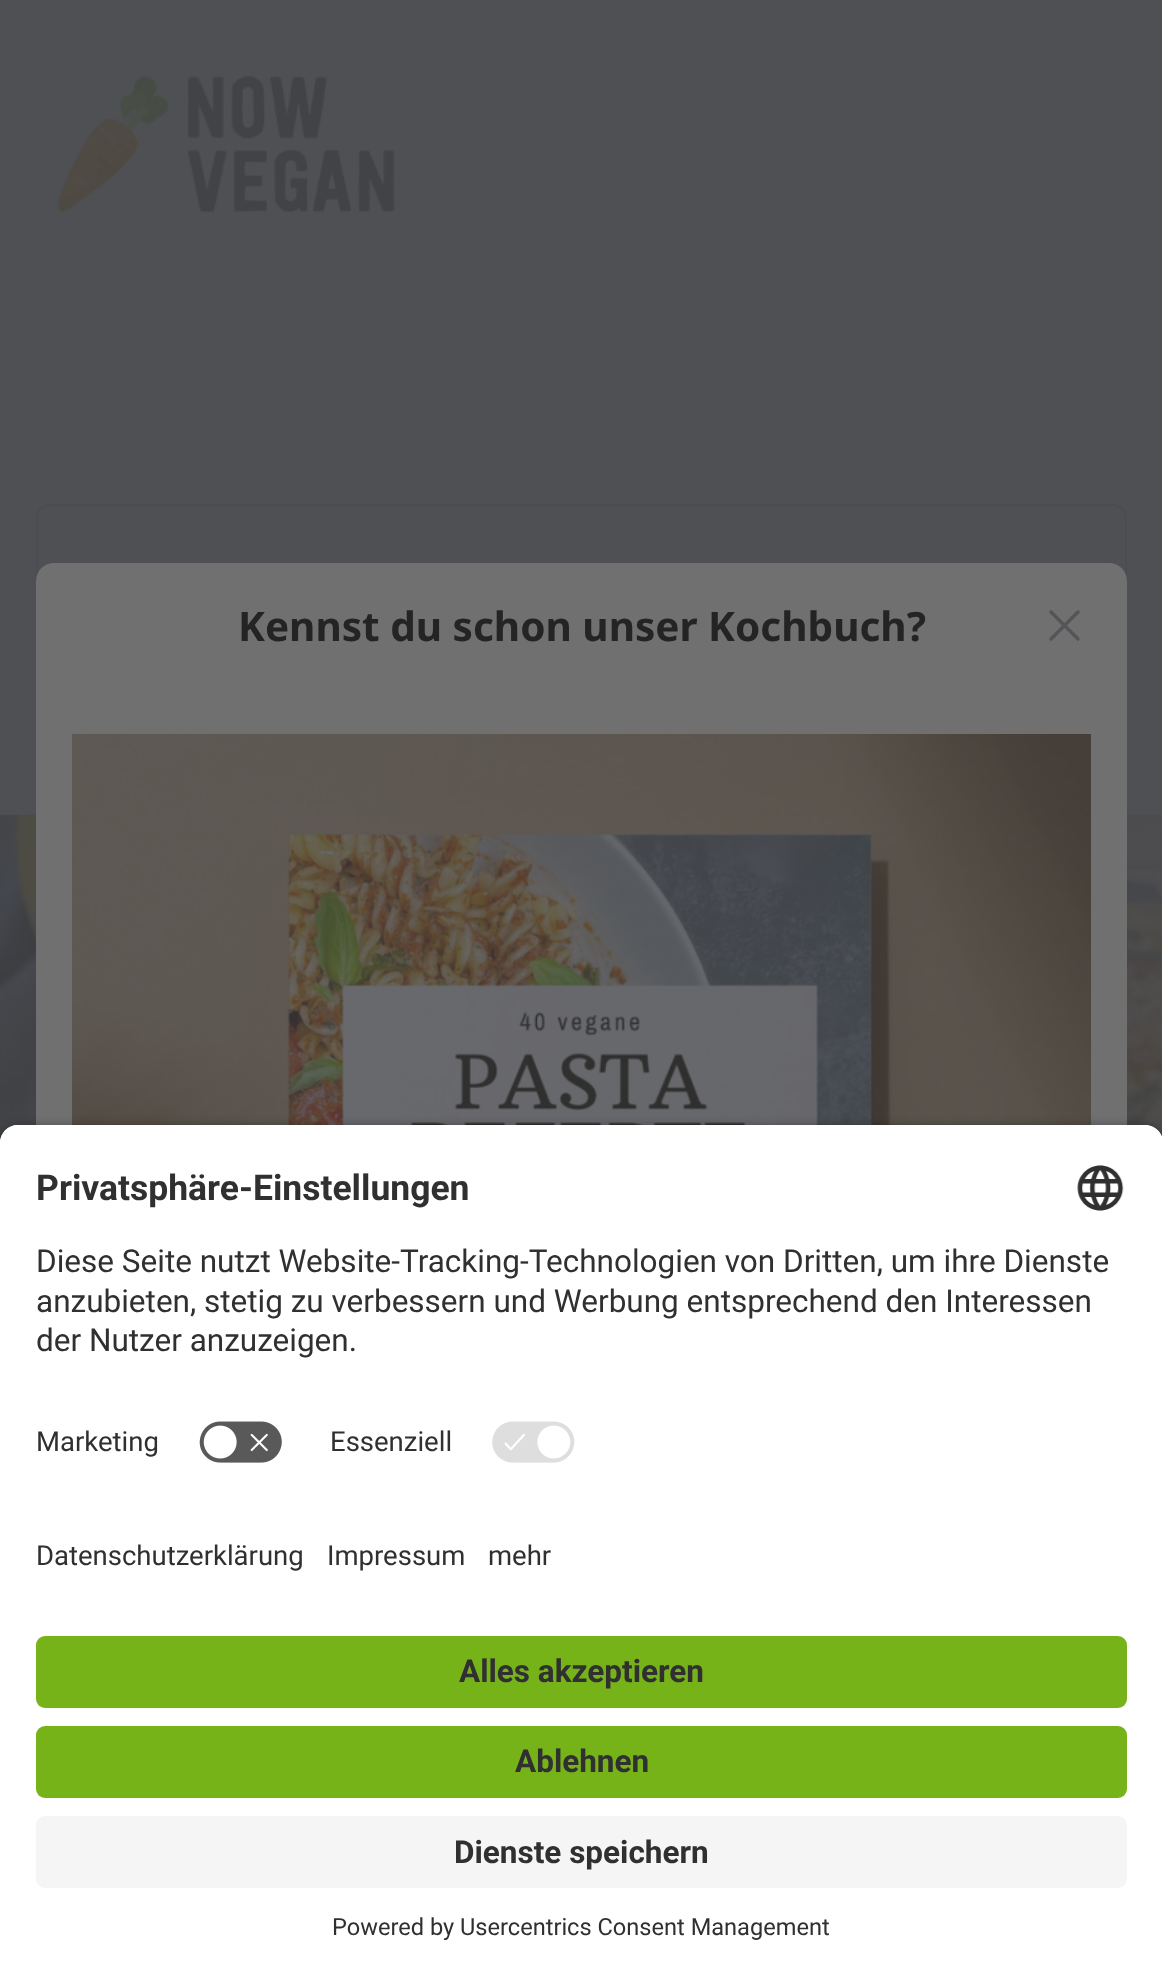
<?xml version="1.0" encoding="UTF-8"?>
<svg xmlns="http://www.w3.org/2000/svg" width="1162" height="1977">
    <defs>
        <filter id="blur1" x="-50%" y="-200%" width="200%" height="500%"><feGaussianBlur stdDeviation="8"/></filter>
    </defs>
    <rect width="100%" height="100%" fill="#4F5054"/>
    <image x="57" y="75" width="338" height="138" href="img_01.png"/>
    <rect x="37" y="505" width="1089" height="219" rx="13" fill="none" stroke="#4C4D51" stroke-width="2"/>
    <image x="0" y="814" width="1162" height="329" href="img_03.png"/>
    <rect x="36" y="563" width="1091" height="1379" rx="18" fill="#707070"/>
    <text x="238" y="641" font-family="Noto Sans" font-size="40.5" font-weight="700" fill="#242424">Kennst du schon unser Kochbuch?</text>
    <image x="72" y="734" width="1019" height="391" href="img_02.png"/>
    <path d="M 1051 639 L 1078 612 M 1051 612 L 1078 639" fill="none" stroke="#535558" stroke-width="3.4" stroke-linecap="round" stroke-linejoin="round"/>
    <rect x="0" y="1132" width="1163" height="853" rx="18" fill="#000000" fill-opacity="0.8" filter="url(#blur1)"/>
    <path d="M 18 1125 H 1145 C 1155 1125 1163 1133 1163 1143 V 1505 H 0 V 1143 C 0 1133 8 1125 18 1125 Z" fill="#FFFFFF"/>
    <path d="M 18 1125 H 1145 C 1155 1125 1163 1133 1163 1143 V 1406 H 0 V 1143 C 0 1133 8 1125 18 1125 Z" fill="#FFFFFF"/>
    <text x="36" y="1200" font-family="Roboto" font-size="35.5" font-weight="700" fill="#303030">Privatsphäre-Einstellungen</text>
    <image x="1077" y="1165" width="47" height="46" href="img_04.png"/>
    <text font-family="Roboto" font-size="31.5" fill="#303030">
        <tspan x="36" y="1272">Diese Seite nutzt Website-Tracking-Technologien von Dritten, um ihre Dienste</tspan>
        <tspan x="36" y="1312">anzubieten, stetig zu verbessern und Werbung entsprechend den Interessen</tspan>
        <tspan x="36" y="1351">der Nutzer anzuzeigen.</tspan>
    </text>
    <text x="36" y="1451" font-family="Roboto" font-size="27.5" fill="#303030">Marketing</text>
    <image x="199" y="1421" width="83" height="42" href="img_05.png"/>
    <text x="330" y="1451" font-family="Roboto" font-size="27.5" fill="#303030">Essenziell</text>
    <image x="492" y="1421" width="83" height="42" href="img_06.png"/>
    <rect x="0" y="1505" width="1162" height="472" fill="#FFFFFF"/>
    <text x="36" y="1565" font-family="Roboto" font-size="27.5" fill="#303030">Datenschutzerklärung</text>
    <text x="327" y="1565" font-family="Roboto" font-size="27.5" fill="#303030">Impressum</text>
    <text x="488" y="1565" font-family="Roboto" font-size="27.5" fill="#303030">mehr</text>
    <rect x="36" y="1636" width="1091" height="72" rx="9" fill="#75B319"/>
    <text x="459" y="1682" font-family="Roboto" font-size="31.5" font-weight="700" fill="#303030">Alles akzeptieren</text>
    <rect x="36" y="1726" width="1091" height="72" rx="9" fill="#75B319"/>
    <text x="515" y="1772" font-family="Roboto" font-size="31.5" font-weight="700" fill="#303030">Ablehnen</text>
    <rect x="36" y="1816" width="1091" height="72" rx="9" fill="#F5F5F5"/>
    <text x="454" y="1863" font-family="Roboto" font-size="31.5" font-weight="700" fill="#303030">Dienste speichern</text>
    <text x="332" y="1935" font-family="Roboto" font-size="23.6" fill="#303030">Powered by Usercentrics Consent Management</text>
</svg>
